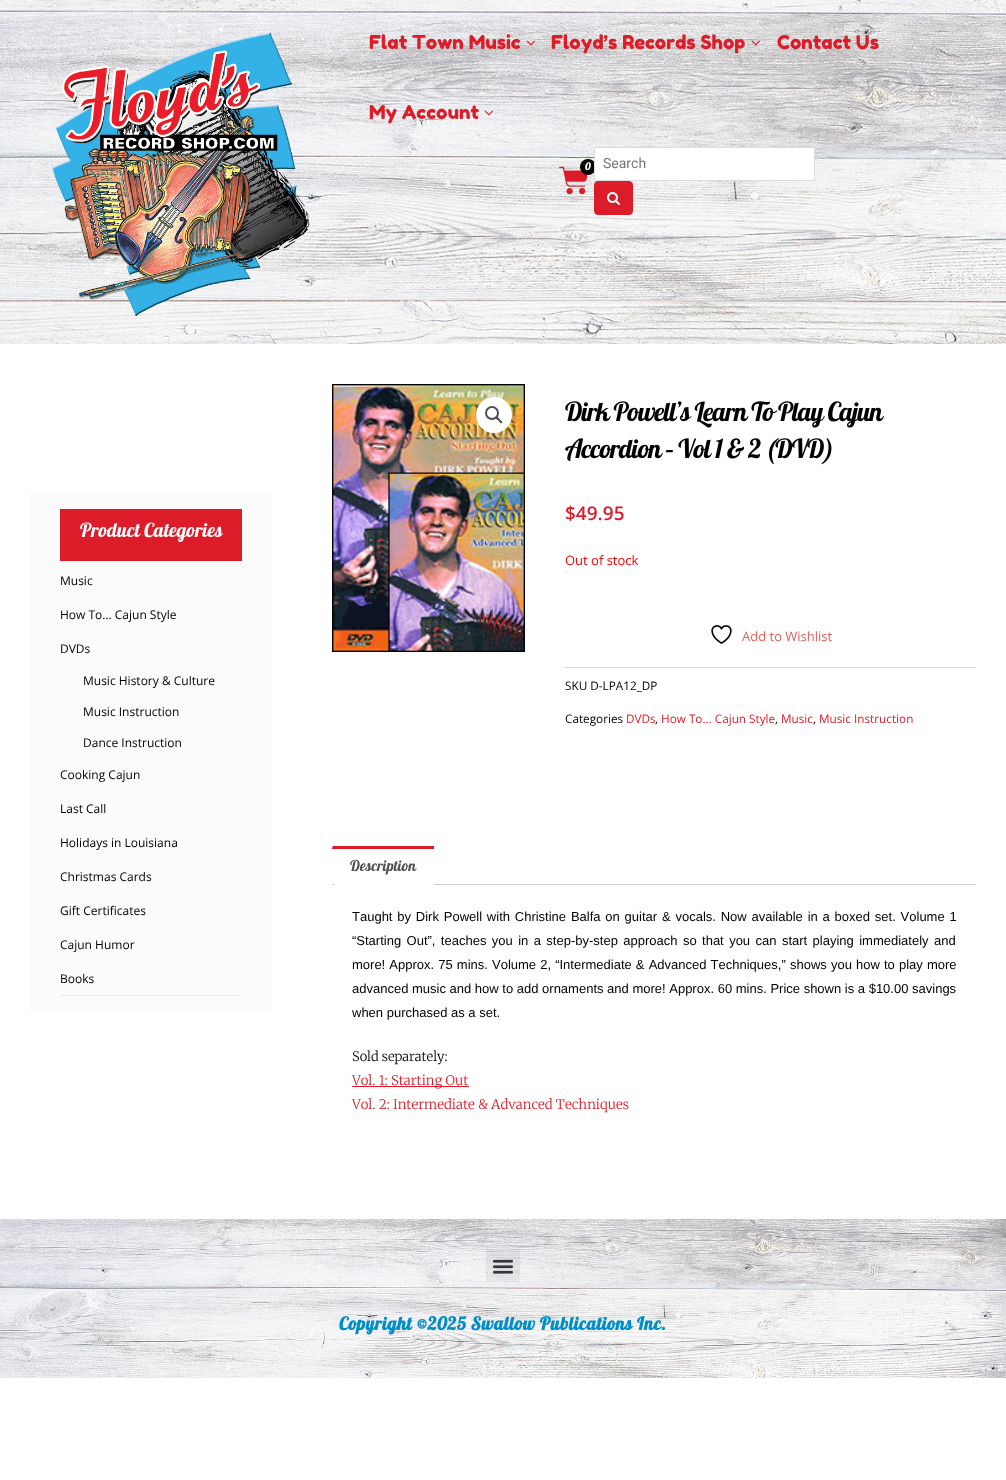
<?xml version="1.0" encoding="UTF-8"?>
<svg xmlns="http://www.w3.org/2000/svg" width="1006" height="1480">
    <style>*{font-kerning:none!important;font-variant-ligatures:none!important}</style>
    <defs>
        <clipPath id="clip1"><rect x="332" y="845" width="644" height="40" rx="4"/></clipPath>
    </defs>
    <rect width="100%" height="100%" fill="#FFFFFF"/>
    <image x="0" y="0" width="1006" height="344" href="img_01.png"/>
    <image x="52" y="32" width="259" height="285" href="img_02.png"/>
    <text x="369" y="49" font-family="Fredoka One" font-size="19" fill="#DD1C29">Flat Town Music</text>
    <image x="526" y="40" width="9" height="6" href="img_03.png"/>
    <text x="551" y="49" font-family="Fredoka One" font-size="19" fill="#DD1C29">Floyd’s Records Shop</text>
    <image x="751" y="40" width="9" height="6" href="img_04.png"/>
    <text x="777" y="49" font-family="Fredoka One" font-size="19" fill="#DD1C29">Contact Us</text>
    <text x="369" y="119" font-family="Fredoka One" font-size="19" fill="#DD1C29">My Account</text>
    <image x="484" y="110" width="9" height="6" href="img_05.png"/>
    <image x="559" y="166" width="29" height="29" href="img_06.png"/>
    <circle cx="588" cy="167" r="8" fill="#000000"/>
    <text x="585" y="170" font-family="Lobster" font-size="10" font-weight="700" fill="#FFFFFF">0</text>
    <rect x="594.5" y="147.5" width="220" height="33" fill="#FFFFFF" stroke="#DDDDDD"/>
    <text x="603" y="168" font-family="Roboto" font-size="14" fill="#757575">Search</text>
    <rect x="594.5" y="181.5" width="38" height="33" rx="3.5" fill="#DD1C29" stroke="#DD1C29"/>
    <image x="607" y="192" width="13" height="13" href="img_07.png"/>
    <rect x="30" y="494" width="242" height="517" fill="#FBFBFB"/>
    <rect x="60" y="509" width="182" height="52" fill="#DD1C29"/>
    <text x="80" y="537" font-family="Lobster" font-size="19.5" fill="#FFFFFF">Product Categories</text>
    <rect x="60" y="995" width="182" height="1" fill="#EDEDED"/>
    <text x="60" y="585" font-family="Open Sans" font-size="12" fill="#000000">Music</text>
    <text x="60" y="619" font-family="Open Sans" font-size="12" fill="#000000">How To… Cajun Style</text>
    <text x="60" y="653" font-family="Open Sans" font-size="12" fill="#000000">DVDs</text>
    <text x="83" y="685" font-family="Open Sans" font-size="12" fill="#000000">Music History &amp; Culture</text>
    <text x="83" y="716" font-family="Open Sans" font-size="12" fill="#000000">Music Instruction</text>
    <text x="83" y="747" font-family="Open Sans" font-size="12" fill="#000000">Dance Instruction</text>
    <text x="60" y="779" font-family="Open Sans" font-size="12" fill="#000000">Cooking Cajun</text>
    <text x="60" y="813" font-family="Open Sans" font-size="12" fill="#000000">Last Call</text>
    <text x="60" y="847" font-family="Open Sans" font-size="12" fill="#000000">Holidays in Louisiana</text>
    <text x="60" y="881" font-family="Open Sans" font-size="12" fill="#000000">Christmas Cards</text>
    <text x="60" y="915" font-family="Open Sans" font-size="12" fill="#000000">Gift Certificates</text>
    <text x="60" y="949" font-family="Open Sans" font-size="12" fill="#000000">Cajun Humor</text>
    <text x="60" y="983" font-family="Open Sans" font-size="12" fill="#000000">Books</text>
    <image x="332" y="384" width="193" height="268" href="img_08.png"/>
    <circle cx="494" cy="415" r="18" fill="#FFFFFF"/>
    <circle cx="492" cy="413" r="6" fill="none" stroke="#4B4F58" stroke-width="2"/>
    <path d="M 496 417 C 497.5 416 499 418.5 500 419.5 C 500.5 420 503 421.5 502 423 C 500.5 424 499 421.5 498.5 420.5 C 497.5 420 495 418.5 496 417 Z" fill="#4B4F58"/>
    <text font-family="Lobster" font-size="26.25" letter-spacing="-1" fill="#000000">
        <tspan x="565" y="421">Dirk Powell’s Learn To Play Cajun</tspan>
        <tspan x="565" y="458">Accordion – Vol 1 &amp; 2 (DVD)</tspan>
    </text>
    <text x="565" y="520" font-family="Open Sans" font-size="19" font-weight="600" fill="#DD1C29">$49.95</text>
    <text x="565" y="565" font-family="Open Sans" font-size="13" fill="#FF0000">Out of stock</text>
    <image x="711" y="625" width="21" height="19" href="img_09.png"/>
    <text x="742" y="641" font-family="Open Sans" font-size="13" fill="#E36159">Add to Wishlist</text>
    <rect x="565" y="667" width="411" height="1" fill="#DDDDDD"/>
    <text x="565" y="690" font-family="Open Sans" font-size="11.75" fill="#000000">SKU D-LPA12_DP</text>
    <text x="565" y="723" font-family="Open Sans" font-size="11.75" fill="#000000">Categories</text>
    <text x="626" y="723" font-family="Open Sans" font-size="11.75" fill="#DD1C29">DVDs</text>
    <text x="655" y="723" font-family="Open Sans" font-size="11.75" fill="#000000">,</text>
    <text x="661" y="723" font-family="Open Sans" font-size="11.75" fill="#DD1C29">How To... Cajun Style</text>
    <text x="775" y="723" font-family="Open Sans" font-size="11.75" fill="#000000">,</text>
    <text x="781" y="723" font-family="Open Sans" font-size="11.75" fill="#DD1C29">Music</text>
    <text x="813" y="723" font-family="Open Sans" font-size="11.75" fill="#000000">,</text>
    <text x="819" y="723" font-family="Open Sans" font-size="11.75" fill="#DD1C29">Music Instruction</text>
    <rect x="332" y="884" width="644" height="1" fill="#D3CED2"/>
    <path d="M 336 846 H 430 C 432 846 434 848 434 850 V 885 H 336 C 334 885 332 883 332 881 V 850 C 332 848 334 846 336 846 Z" fill="#FFFFFF"/>
    <g clip-path="url(#clip1)">
        <rect x="332" y="846" width="102" height="3" fill="#DD1C29"/>
    </g>
    <text x="350" y="871" font-family="Lobster" font-size="15" fill="#515151">Description</text>
    <text font-family="Liberation Sans" font-size="13" fill="#000000">
        <tspan x="352" y="921" word-spacing="1.2">Taught by Dirk Powell with Christine Balfa on guitar &amp; vocals. Now available in a boxed set. Volume 1</tspan>
        <tspan x="352" y="945" word-spacing="1.8">“Starting Out”, teaches you in a step-by-step approach so that you can start playing immediately and</tspan>
        <tspan x="352" y="969" word-spacing="0.5">more! Approx. 75 mins. Volume 2, “Intermediate &amp; Advanced Techniques,”</tspan>
    </text>
    <text x="790" y="969" word-spacing="0.5" font-family="Liberation Sans" font-size="13" fill="#000000">shows you how to play more</text>
    <text font-family="Liberation Sans" font-size="13" fill="#000000">
        <tspan x="352" y="993">advanced music and how to add ornaments and more! Approx. 60 mins. Price shown is a $10.00 savings</tspan>
        <tspan x="352" y="1017">when purchased as a set.</tspan>
    </text>
    <text x="352" y="1061" font-family="Merriweather" font-size="13" font-weight="300" fill="#000000">Sold separately:</text>
    <rect x="352" y="1086" width="117" height="1" fill="#DD1C29"/>
    <text font-family="Merriweather" font-size="13.3" font-weight="300" fill="#DD1C29">
        <tspan x="352" y="1085">Vol. 1: Starting Out</tspan>
        <tspan x="352" y="1109">Vol. 2: Intermediate &amp; Advanced Techniques</tspan>
    </text>
    <image x="0" y="1219" width="1006" height="159" href="img_10.png"/>
    <rect x="486" y="1249" width="34" height="33" fill="#000000" fill-opacity="0.05"/>
    <image x="492" y="1259" width="22" height="15" href="img_11.png"/>
    <text x="339" y="1330" font-family="Lobster" font-size="18" font-weight="700" letter-spacing="0.5" fill="#008EC9">Copyright ©2025 Swallow Publications Inc.</text>
</svg>
